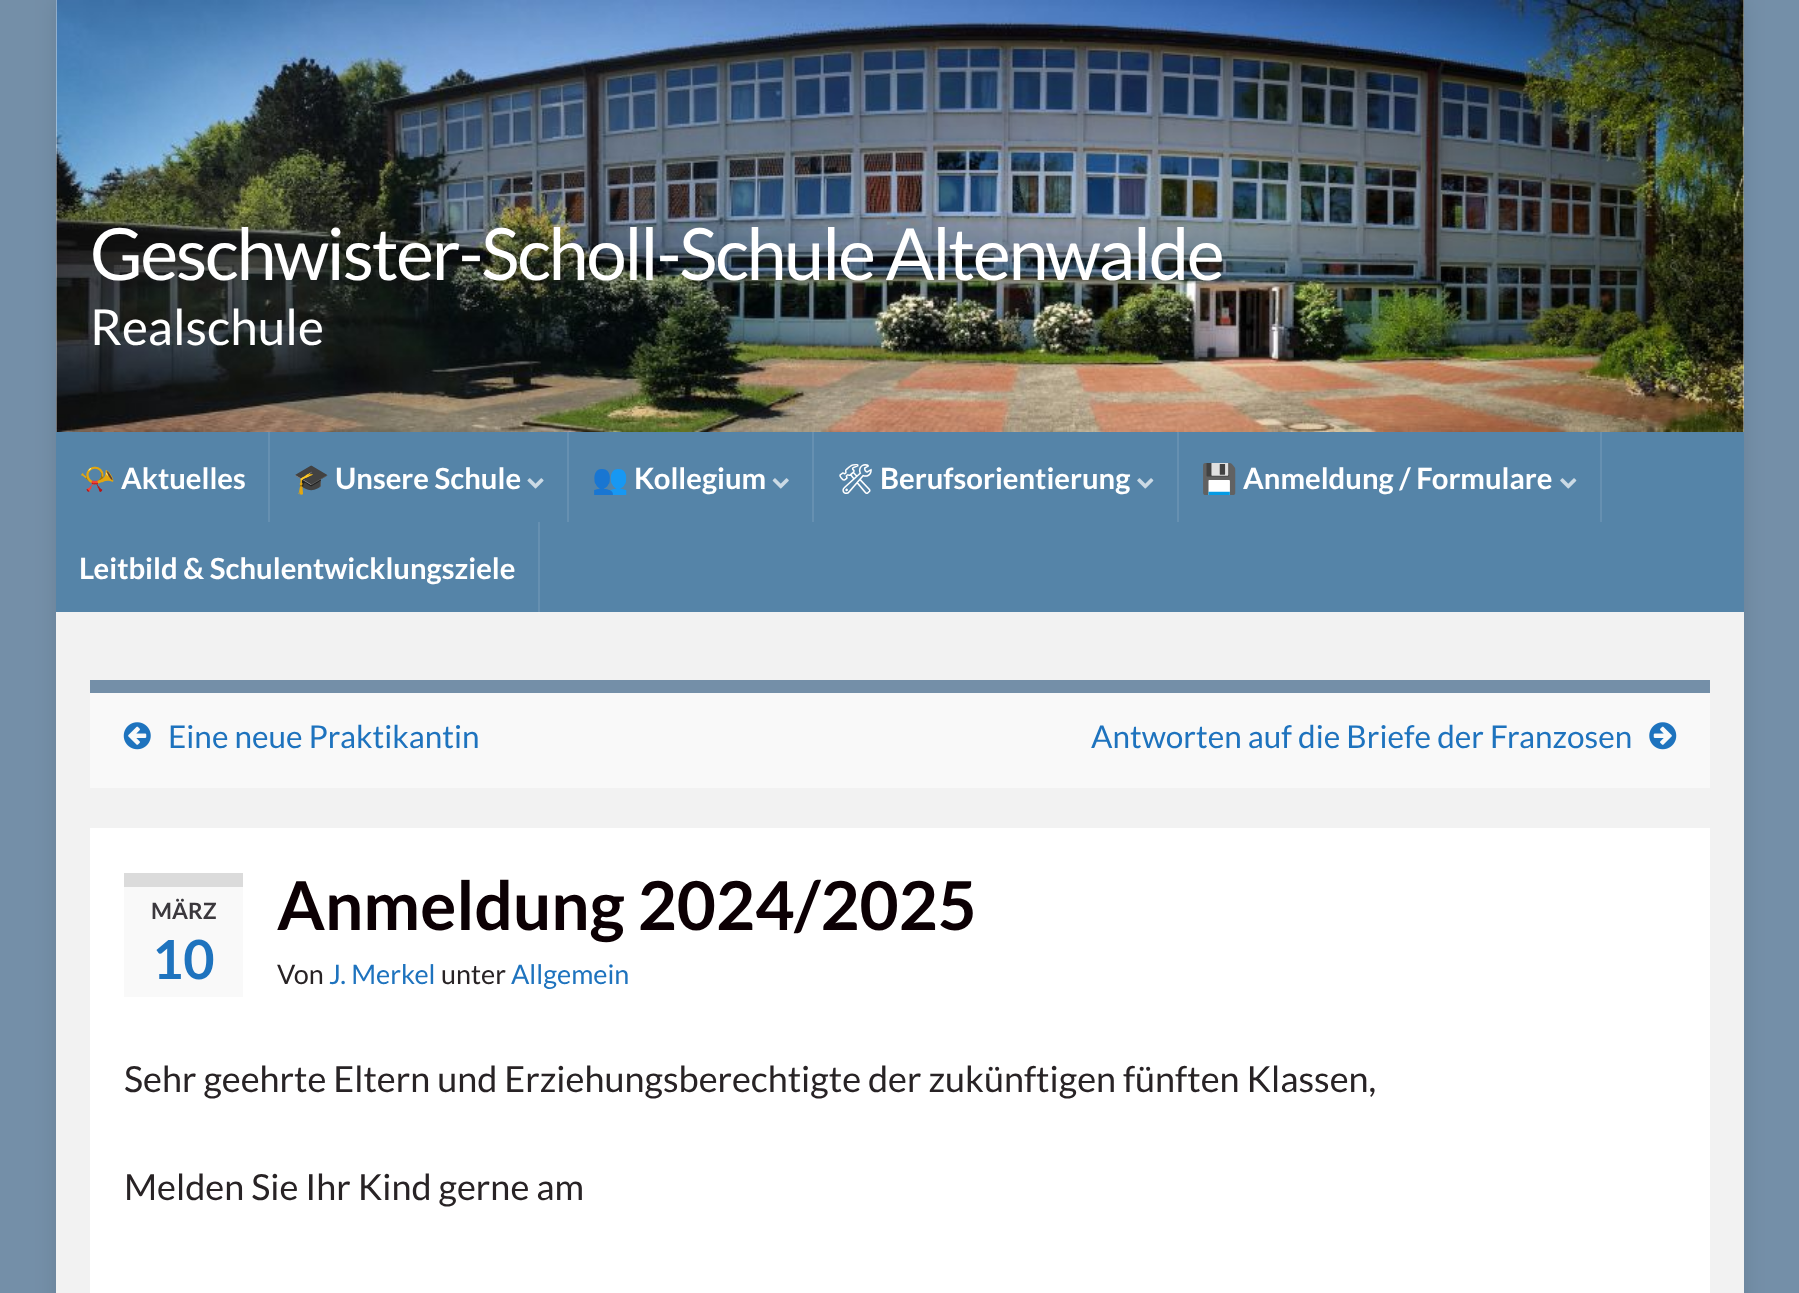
<?xml version="1.0" encoding="UTF-8"?>
<svg xmlns="http://www.w3.org/2000/svg" width="1799" height="1293">
    <defs>
        <filter id="blur1" x="-50%" y="-200%" width="200%" height="500%"><feGaussianBlur stdDeviation="11"/></filter>
    </defs>
    <rect width="100%" height="100%" fill="#748FA8"/>
    <rect x="56" y="0" width="1688" height="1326" fill="#000000" fill-opacity="0.1" filter="url(#blur1)"/>
    <rect x="56" y="0" width="1688" height="432" fill="#F2F2F2"/>
    <image x="56" y="0" width="1688" height="432" href="img_01.png"/>
    <rect x="56" y="432" width="1688" height="180" fill="#5584A8"/>
    <text x="90" y="280" font-family="Lato" font-size="72" letter-spacing="-2.25" fill="#FFFFFF">Geschwister-Scholl-Schule Altenwalde</text>
    <text x="90" y="345" font-family="Lato" font-size="49.5" fill="#FFFFFF">Realschule</text>
    <rect x="268" y="432" width="2" height="90" fill="#6690B1"/>
    <text x="79" y="489" font-family="Noto Color Emoji" font-size="29.25" font-weight="700" fill="#FFFFFF">📯</text>
    <text x="121" y="489" font-family="Lato" font-size="29.25" font-weight="700" fill="#FFFFFF">Aktuelles</text>
    <rect x="567" y="432" width="2" height="90" fill="#6690B1"/>
    <text x="293" y="489" font-family="Noto Color Emoji" font-size="29.25" font-weight="700" fill="#FFFFFF">🎓</text>
    <text x="335" y="489" font-family="Lato" font-size="29.25" font-weight="700" fill="#FFFFFF">Unsere Schule</text>
    <image x="527" y="478" width="17" height="11" href="img_02.png"/>
    <rect x="812" y="432" width="2" height="90" fill="#6690B1"/>
    <text x="592" y="489" font-family="Noto Color Emoji" font-size="29.25" font-weight="700" fill="#FFFFFF">👥</text>
    <text x="634" y="489" font-family="Lato" font-size="29.25" font-weight="700" fill="#FFFFFF">Kollegium</text>
    <image x="772" y="478" width="17" height="11" href="img_03.png"/>
    <rect x="1177" y="432" width="2" height="90" fill="#6690B1"/>
    <text x="837" y="489" font-family="Noto Emoji" font-size="29.25" font-weight="700" fill="#FFFFFF">🛠</text>
    <text x="880" y="489" font-family="Lato" font-size="29.25" font-weight="700" fill="#FFFFFF">Berufsorientierung</text>
    <image x="1137" y="478" width="17" height="11" href="img_04.png"/>
    <rect x="1600" y="432" width="2" height="90" fill="#6690B1"/>
    <text x="1201" y="489" font-family="Noto Color Emoji" font-size="29.25" font-weight="700" fill="#FFFFFF">💾</text>
    <text x="1243" y="489" font-family="Lato" font-size="29.25" font-weight="700" fill="#FFFFFF">Anmeldung / Formulare</text>
    <image x="1560" y="478" width="17" height="11" href="img_04.png"/>
    <rect x="538" y="522" width="2" height="90" fill="#6690B1"/>
    <text x="79" y="579" font-family="Lato" font-size="29.25" font-weight="700" fill="#FFFFFF">Leitbild &amp; Schulentwicklungsziele</text>
    <rect x="56" y="612" width="1688" height="681" fill="#F2F2F2"/>
    <rect x="90" y="693" width="1620" height="95" fill="#F9F9F9"/>
    <rect x="90" y="680" width="1620" height="13" fill="#748FA8"/>
    <image x="123" y="722" width="28" height="28" href="img_05.png"/>
    <text x="168" y="748" font-family="Lato" font-size="31.5" fill="#1E73BE">Eine neue Praktikantin</text>
    <text x="1091" y="748" font-family="Lato" font-size="31.5" fill="#1E73BE">Antworten auf die Briefe der Franzosen</text>
    <image x="1649" y="722" width="28" height="28" href="img_06.png"/>
    <rect x="90" y="828" width="1620" height="465" fill="#FFFFFF"/>
    <rect x="124" y="887" width="119" height="110" fill="#F9F9F9"/>
    <rect x="124" y="873" width="119" height="14" fill="#DBDBDB"/>
    <text x="151" y="919" font-family="Lato" font-size="22.5" font-weight="700" fill="#3B383D">MÄRZ</text>
    <text x="152" y="979" font-family="Lato" font-size="54" font-weight="700" fill="#1E73BE">10</text>
    <text x="277" y="930" font-family="Lato" font-size="67.5" font-weight="700" fill="#0C0004">Anmeldung 2024/2025</text>
    <text x="277" y="984" font-family="Lato" font-size="27" fill="#282325">Von</text>
    <text x="329" y="984" font-family="Lato" font-size="27" fill="#1E73BE">J. Merkel</text>
    <text x="441" y="984" font-family="Lato" font-size="27" fill="#282325">unter</text>
    <text x="511" y="984" font-family="Lato" font-size="27" fill="#1E73BE">Allgemein</text>
    <text x="124" y="1092" font-family="Lato" font-size="36" fill="#282325">Sehr geehrte Eltern und Erziehungsberechtigte der zukünftigen fünften Klassen,</text>
    <text x="124" y="1200" font-family="Lato" font-size="36" fill="#282325">Melden Sie Ihr Kind gerne am</text>
</svg>
